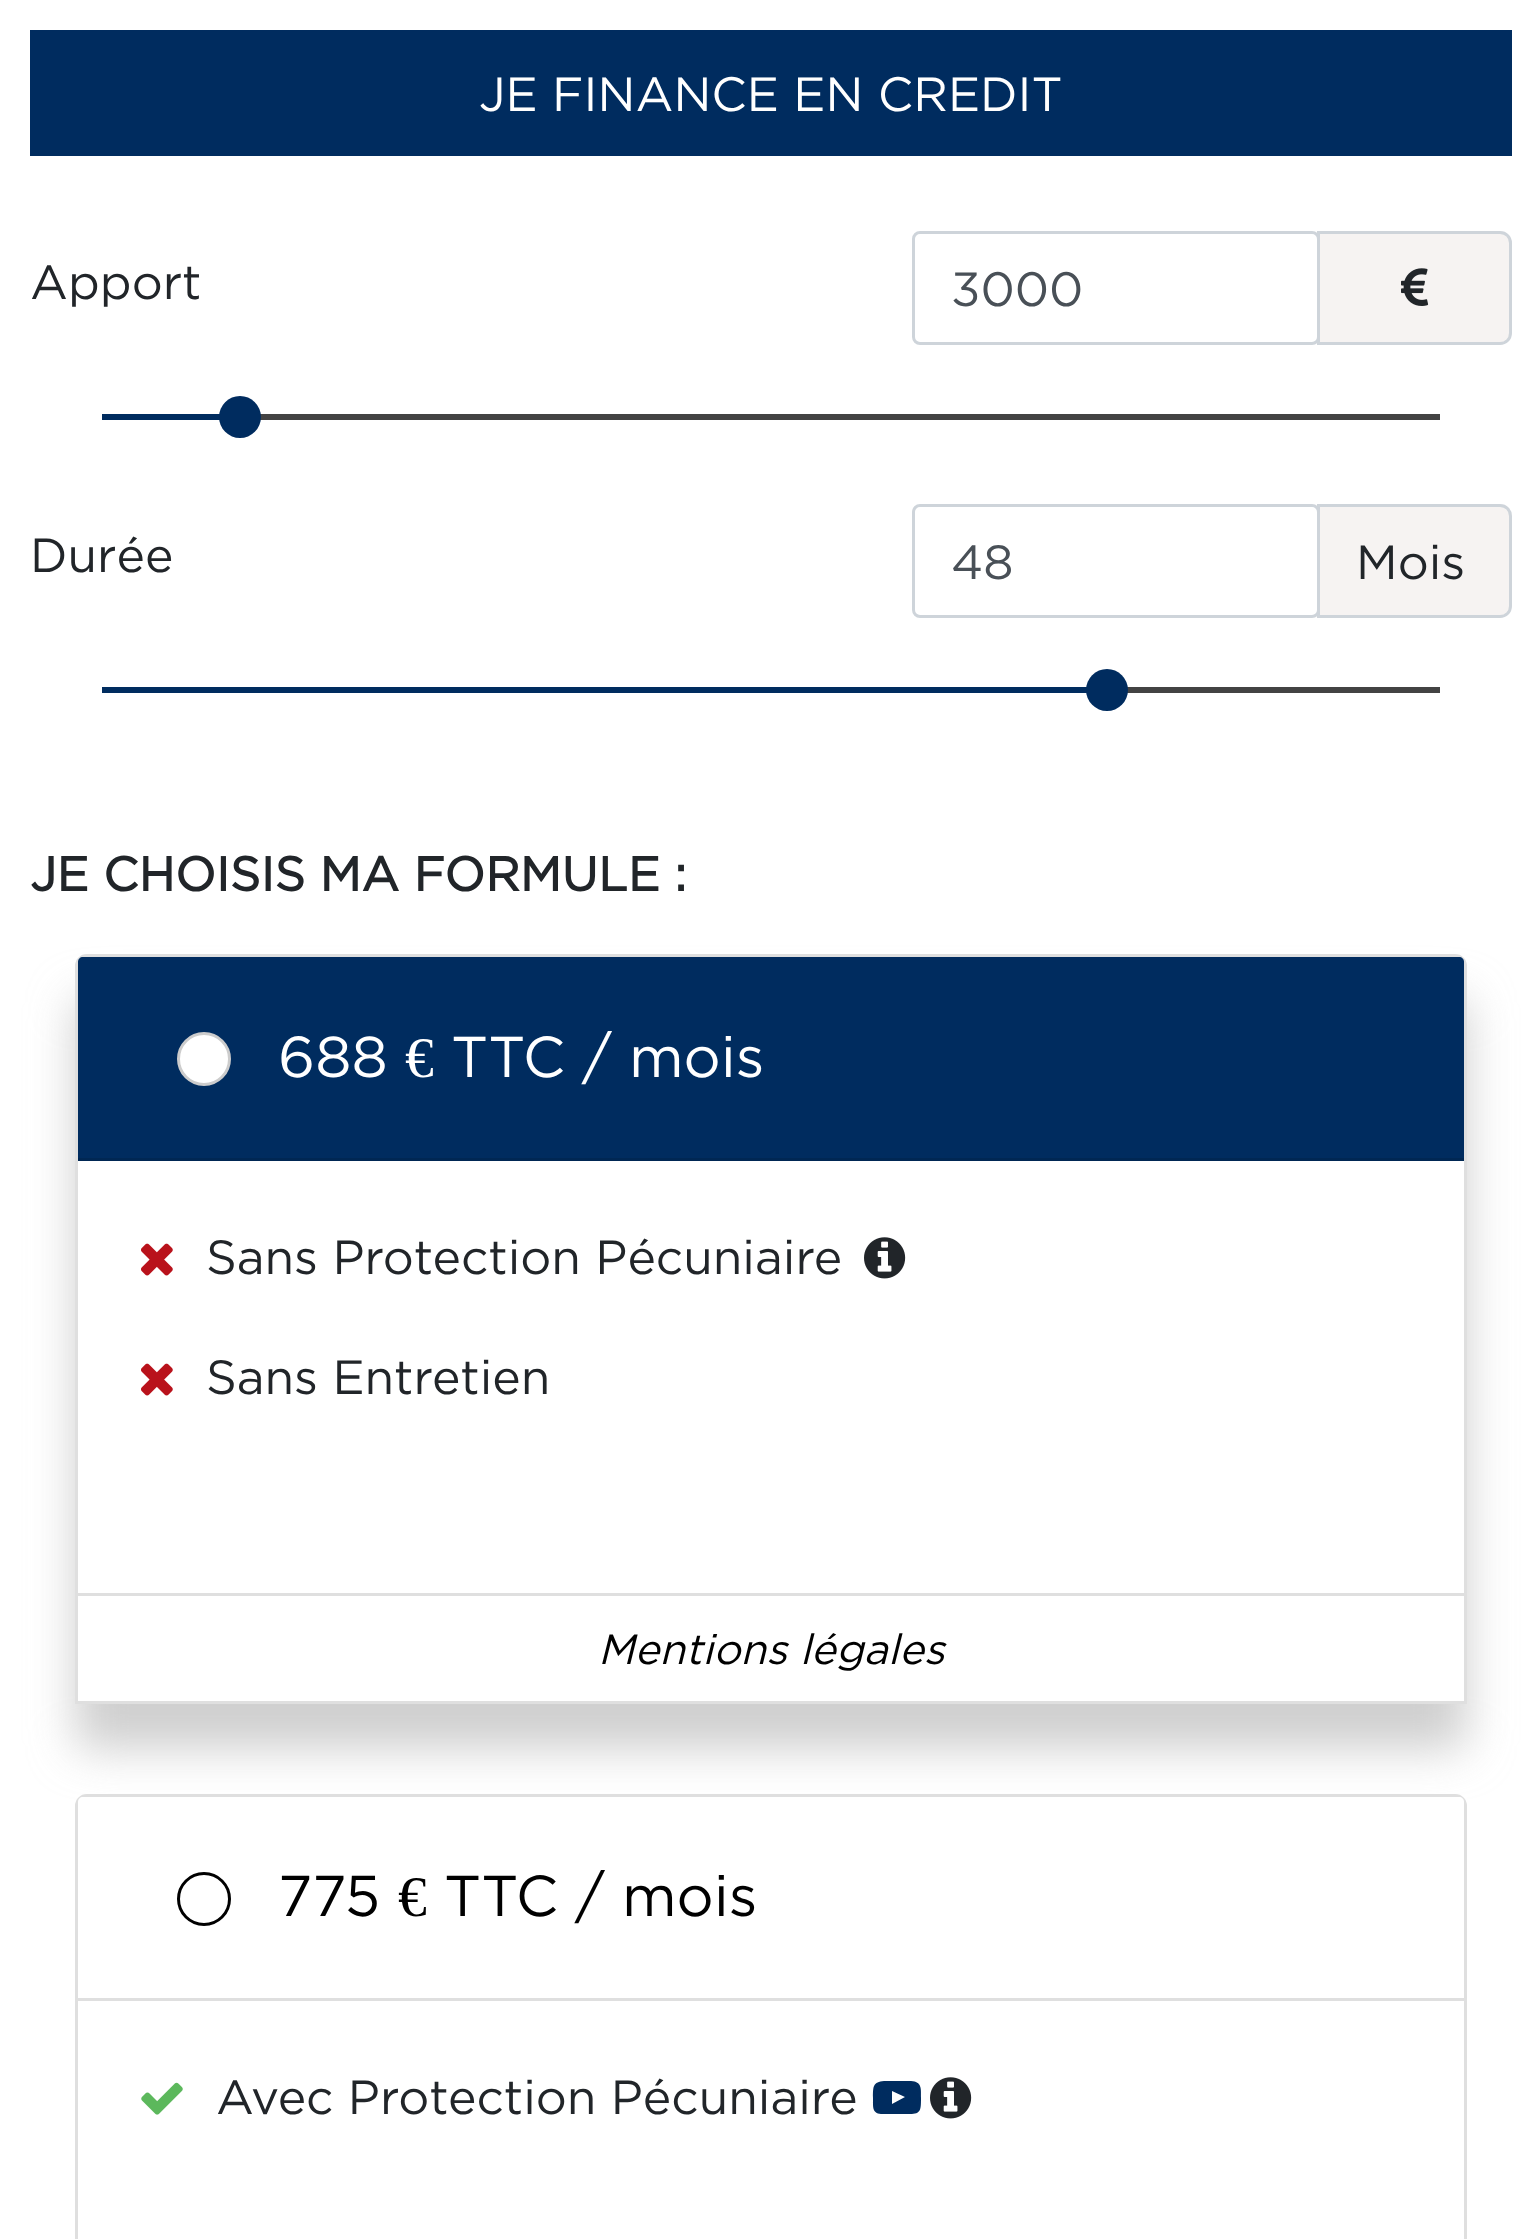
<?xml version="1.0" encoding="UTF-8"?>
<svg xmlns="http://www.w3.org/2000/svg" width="1540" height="2239">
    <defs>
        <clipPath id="clip1"><path d="M 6 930 H 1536 V 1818 H 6 Z M 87 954 H 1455 C 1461.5 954 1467 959.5 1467 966 V 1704 H 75 V 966 C 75 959.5 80.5 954 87 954 Z" clip-rule="evenodd"/></clipPath>
        <filter id="blur1" x="-50%" y="-200%" width="200%" height="500%"><feGaussianBlur stdDeviation="22.5"/></filter>
    </defs>
    <rect width="100%" height="100%" fill="#FFFFFF"/>
    <rect x="30" y="30" width="1482" height="126" fill="#002C5F"/>
    <text x="479" y="111" font-family="Gotham" font-size="48" fill="#FFFFFF">JE FINANCE EN CREDIT</text>
    <text x="30" y="299" font-family="Gotham" font-size="48" fill="#212529">Apport</text>
    <path d="M 1318.5 232.5 H 1500 C 1506 232.5 1510.5 237 1510.5 243 V 333 C 1510.5 339 1506 343.5 1500 343.5 H 1318.5 Z" fill="#F6F3F2" stroke="#CED4DA" stroke-width="3"/>
    <rect x="913.5" y="232.5" width="405" height="111" rx="6.5" fill="none" stroke="#CED4DA" stroke-width="3"/>
    <text x="951" y="306" font-family="Gotham" font-size="48" fill="#495057">3000</text>
    <image x="1401" y="268" width="28" height="38" href="img_01.png"/>
    <rect x="102" y="414" width="118" height="6" fill="#002C5F"/>
    <rect x="260" y="414" width="1180" height="6" fill="#434343"/>
    <circle cx="240" cy="417" r="21" fill="#002C5F"/>
    <text x="30" y="572" font-family="Gotham" font-size="48" fill="#212529">Durée</text>
    <path d="M 1318.5 505.5 H 1500 C 1506 505.5 1510.5 510 1510.5 516 V 606 C 1510.5 612 1506 616.5 1500 616.5 H 1318.5 Z" fill="#F6F3F2" stroke="#CED4DA" stroke-width="3"/>
    <rect x="913.5" y="505.5" width="405" height="111" rx="6.5" fill="none" stroke="#CED4DA" stroke-width="3"/>
    <text x="951" y="579" font-family="Gotham" font-size="48" fill="#495057">48</text>
    <text x="1356" y="579" font-family="Gotham" font-size="48" fill="#212529">Mois</text>
    <rect x="102" y="687" width="985" height="6" fill="#002C5F"/>
    <rect x="1127" y="687" width="313" height="6" fill="#434343"/>
    <circle cx="1107" cy="690" r="21" fill="#002C5F"/>
    <text x="30" y="891" font-family="Gotham" font-size="48" font-weight="700" fill="#212529">JE CHOISIS MA FORMULE :</text>
    <g clip-path="url(#clip1)">
        <rect x="75" y="999" width="1392" height="750" rx="12" fill="#CFCFCF" filter="url(#blur1)"/>
    </g>
    <path d="M 87 955.5 H 1455 C 1461 955.5 1465.5 960 1465.5 966 V 1702.5 H 76.5 V 966 C 76.5 960 81 955.5 87 955.5 Z" fill="none" stroke="#DFDFDF" stroke-width="3"/>
    <path d="M 83 957 H 1459 C 1462 957 1464 959 1464 962 V 1161 H 78 V 962 C 78 959 80 957 83 957 Z" fill="#002C5F"/>
    <rect x="78" y="1158" width="1386" height="3" fill="#002753"/>
    <circle cx="204" cy="1059" r="25.5" fill="#FFFFFF" stroke="#CCCCCC" stroke-width="3"/>
    <text x="278" y="1077" font-family="Gotham" font-size="57.5" fill="#FFFFFF">688</text>
    <text x="405" y="1077" font-family="Liberation Serif" font-size="57.5" fill="#FFFFFF">€</text>
    <text x="451" y="1077" font-family="Gotham" font-size="57.5" fill="#FFFFFF">TTC / mois</text>
    <image x="141" y="1243" width="32" height="33" href="img_02.png"/>
    <text x="206" y="1274" font-family="Gotham" font-size="48" fill="#212529">Sans Protection Pécuniaire</text>
    <image x="864" y="1237" width="42" height="42" href="img_03.png"/>
    <image x="141" y="1363" width="32" height="33" href="img_02.png"/>
    <text x="206" y="1394" font-family="Gotham" font-size="48" fill="#212529">Sans Entretien</text>
    <rect x="78" y="1593" width="1386" height="3" fill="#DFDFDF"/>
    <text x="598" y="1664" font-family="Gotham" font-size="42" font-style="italic" fill="#000000">Mentions légales</text>
    <path d="M 87 1795.5 H 1455 C 1461 1795.5 1465.5 1800 1465.5 1806 V 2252.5 H 76.5 V 1806 C 76.5 1800 81 1795.5 87 1795.5 Z" fill="none" stroke="#DFDFDF" stroke-width="3"/>
    <path d="M 83 1797 H 1459 C 1462 1797 1464 1799 1464 1802 V 2001 H 78 V 1802 C 78 1799 80 1797 83 1797 Z" fill="#FFFFFF"/>
    <rect x="78" y="1998" width="1386" height="3" fill="#DFDFDF"/>
    <circle cx="204" cy="1899" r="25.5" fill="none" stroke="#000000" stroke-width="3"/>
    <text x="278" y="1916" font-family="Gotham" font-size="57.5" fill="#000000">775</text>
    <text x="398" y="1916" font-family="Liberation Serif" font-size="57.5" fill="#000000">€</text>
    <text x="444" y="1916" font-family="Gotham" font-size="57.5" fill="#000000">TTC / mois</text>
    <image x="141" y="2082" width="42" height="33" href="img_04.png"/>
    <text x="216" y="2114" font-family="Gotham" font-size="48" fill="#212529">Avec Protection Pécuniaire</text>
    <path d="M 892 2104 L 905 2097 L 892 2091 Z M 897 2081 H 911 C 922 2082 921 2088 921 2098 C 921 2110 921 2114 910 2114 H 883 C 872 2114 873 2108 873 2098 C 873 2086 873 2082 884 2081 Z" fill="#002C5F"/>
    <image x="930" y="2077" width="42" height="42" href="img_03.png"/>
</svg>
